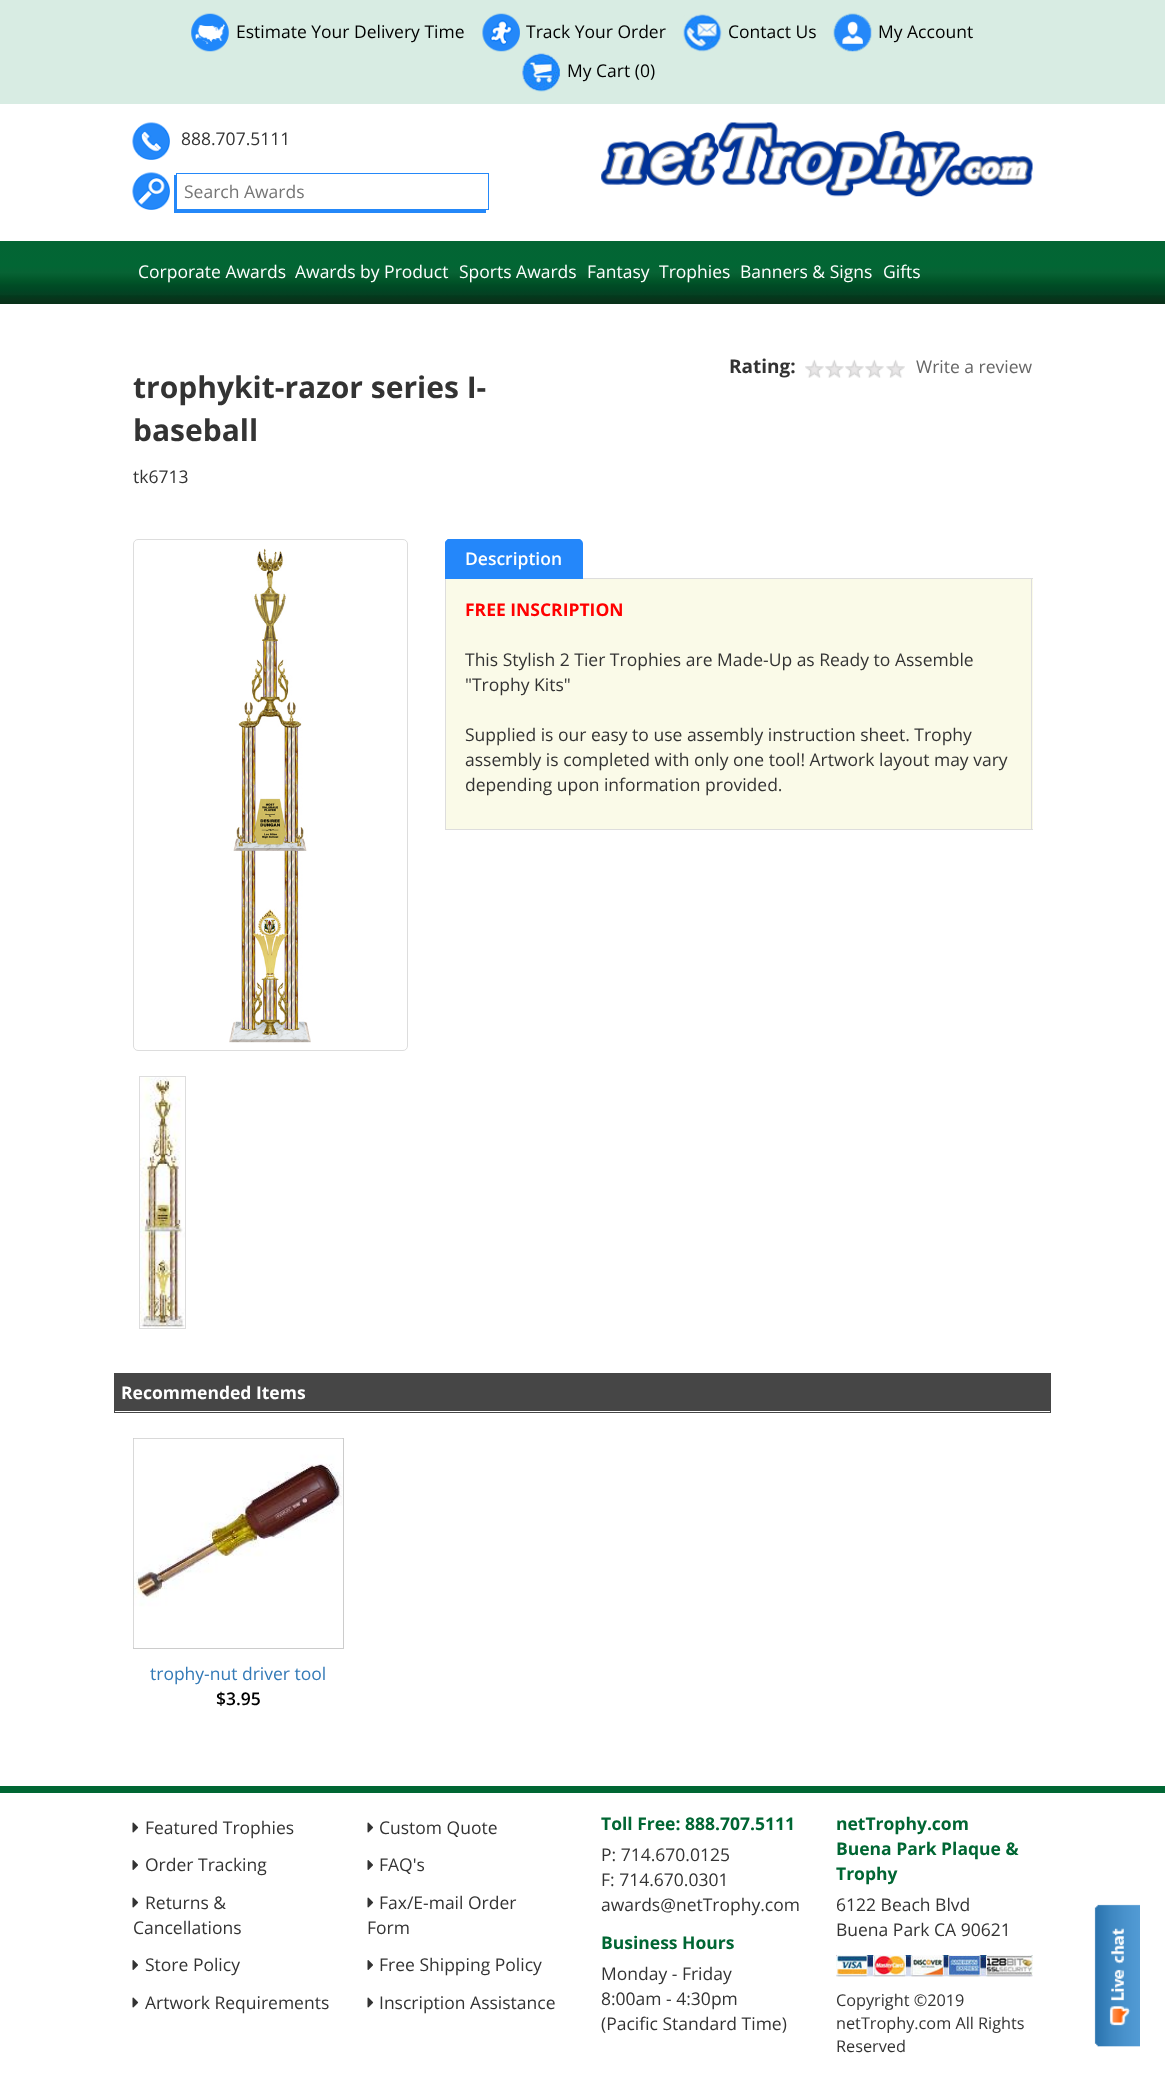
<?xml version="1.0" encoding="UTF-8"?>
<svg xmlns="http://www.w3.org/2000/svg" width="1165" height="2073">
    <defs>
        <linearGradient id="g1" gradientUnits="userSpaceOnUse" x1="583" y1="241" x2="583" y2="304"><stop offset="0" stop-color="#036534"/><stop offset="0.39" stop-color="#026634"/><stop offset="0.5" stop-color="#076334"/><stop offset="0.65" stop-color="#005327"/><stop offset="0.67" stop-color="#005128"/><stop offset="0.7" stop-color="#004C25"/><stop offset="0.78" stop-color="#004624"/><stop offset="0.85" stop-color="#054022"/><stop offset="0.87" stop-color="#023A1D"/><stop offset="0.93" stop-color="#08341B"/><stop offset="1" stop-color="#083018"/></linearGradient>
    </defs>
    <rect width="100%" height="100%" fill="#FFFFFF"/>
    <rect x="0" y="0" width="1165" height="104" fill="#D8ECE3"/>
    <image x="191" y="13" width="38" height="39" href="img_01.png"/>
    <text x="236" y="38" font-family="Open Sans" font-size="17.5" fill="#000000">Estimate Your Delivery Time</text>
    <image x="482" y="13" width="38" height="39" href="img_02.png"/>
    <text x="526" y="38" font-family="Open Sans" font-size="17.5" fill="#000000">Track Your Order</text>
    <image x="683" y="14" width="39" height="38" href="img_03.png"/>
    <text x="728" y="38" font-family="Open Sans" font-size="17.5" fill="#000000">Contact Us</text>
    <image x="833" y="13" width="39" height="39" href="img_04.png"/>
    <text x="878" y="38" font-family="Open Sans" font-size="17.5" fill="#000000">My Account</text>
    <image x="522" y="53" width="38" height="39" href="img_05.png"/>
    <text x="567" y="77" font-family="Open Sans" font-size="17.5" fill="#000000">My Cart (0)</text>
    <image x="132" y="122" width="38" height="38" href="img_06.png"/>
    <text x="181" y="145" font-family="Open Sans" font-size="17.5" fill="#333333">888.707.5111</text>
    <image x="132" y="172" width="38" height="38" href="img_07.png"/>
    <path d="M 174 175 V 213 H 486 V 210 H 176 V 175 Z" fill="#2488F9"/>
    <rect x="176.5" y="173.5" width="312" height="36" fill="none" stroke="#2488F9"/>
    <text x="184" y="198" font-family="Open Sans" font-size="17.5" fill="#757575">Search Awards</text>
    <image x="601" y="122" width="432" height="75" href="img_08.png"/>
    <image x="1094" y="1904" width="46" height="143" href="img_09.png"/>
    <rect x="0" y="241" width="1165" height="63" fill="url(#g1)"/>
    <text x="138" y="278" font-family="Open Sans" font-size="17.5" fill="#FFFFFF">Corporate Awards</text>
    <text x="295" y="278" font-family="Open Sans" font-size="17.5" fill="#FFFFFF">Awards by Product</text>
    <text x="459" y="278" font-family="Open Sans" font-size="17.5" fill="#FFFFFF">Sports Awards</text>
    <text x="587" y="278" font-family="Open Sans" font-size="17.5" fill="#FFFFFF">Fantasy</text>
    <text x="659" y="278" font-family="Open Sans" font-size="17.5" fill="#FFFFFF">Trophies</text>
    <text x="740" y="278" font-family="Open Sans" font-size="17.5" fill="#FFFFFF">Banners &amp; Signs</text>
    <text x="883" y="278" font-family="Open Sans" font-size="17.5" fill="#FFFFFF">Gifts</text>
    <text x="729" y="373" font-family="Open Sans" font-size="19" font-weight="700" fill="#333333">Rating:</text>
    <image x="805" y="359" width="100" height="19" href="img_10.png"/>
    <text x="916" y="373" font-family="Open Sans" font-size="17.5" fill="#666666">Write a review</text>
    <text font-family="Open Sans" font-size="30" font-weight="700" fill="#333333">
        <tspan x="133" y="398">trophykit-razor series I-</tspan>
        <tspan x="133" y="441">baseball</tspan>
    </text>
    <text x="133" y="483" font-family="Open Sans" font-size="17.5" fill="#333333">tk6713</text>
    <rect x="133.5" y="539.5" width="274" height="511" rx="4.5" fill="none" stroke="#DDDDDD"/>
    <image x="229" y="548" width="82" height="495" href="img_11.png"/>
    <rect x="139.5" y="1076.5" width="46" height="252" fill="none" stroke="#DDDDDD"/>
    <image x="140" y="1077" width="45" height="251" href="img_12.png"/>
    <rect x="583" y="578" width="450" height="1" fill="#DDDDDD"/>
    <path d="M 450 539 H 578 C 581 539 583 541 583 544 V 579 H 445 V 544 C 445 541 447 539 450 539 Z" fill="#2487FA"/>
    <path d="M 450 539 C 449 539 447 539 447 540 V 541 L 450 540 H 578 L 580 541 L 581 540 C 580 540 579 539 578 539 Z" fill="#2487FA"/>
    <path d="M 582 578 V 544 C 582 542.5 581.5 541.5 581 540.5 L 580 541 C 580.5 542 581 543 581 544 V 577 Z" fill="#2487FA"/>
    <path d="M 445 579 L 446 578 V 544 C 446 543 446.5 542 447.5 541 L 446.5 540.5 C 445.5 541 445 542.5 445 544 Z" fill="#2487FA"/>
    <text x="465" y="565" font-family="Open Sans" font-size="17.5" font-weight="600" fill="#FFFFFF">Description</text>
    <rect x="446" y="579" width="587" height="250" fill="#FAFAE8"/>
    <rect x="1031" y="579" width="1" height="251" fill="#DDDDDD"/>
    <rect x="445" y="829" width="588" height="1" fill="#DDDDDD"/>
    <rect x="445" y="579" width="1" height="251" fill="#DDDDDD"/>
    <text x="465" y="616" font-family="Open Sans" font-size="17.5" font-weight="700" fill="#FF0000">FREE INSCRIPTION</text>
    <text font-family="Open Sans" font-size="17.5" fill="#333333">
        <tspan x="465" y="666">This Stylish 2 Tier Trophies are Made-Up as Ready to Assemble</tspan>
        <tspan x="465" y="691">"Trophy Kits"</tspan>
    </text>
    <text font-family="Open Sans" font-size="17.5" fill="#333333">
        <tspan x="465" y="741">Supplied is our easy to use assembly instruction sheet. Trophy</tspan>
        <tspan x="465" y="766">assembly is completed with only one tool! Artwork layout may vary</tspan>
        <tspan x="465" y="791">depending upon information provided.</tspan>
    </text>
    <rect x="114.5" y="1373.5" width="936" height="39" fill="none" stroke="#464646"/>
    <rect x="115" y="1374" width="935" height="37" fill="#464646"/>
    <text x="121" y="1399" font-family="Open Sans" font-size="17.5" font-weight="700" fill="#FFFFFF">Recommended Items</text>
    <rect x="133.5" y="1438.5" width="210" height="210" fill="none" stroke="#CCCCCC"/>
    <image x="133" y="1438" width="210" height="210" href="img_13.png"/>
    <text x="150" y="1680" font-family="Open Sans" font-size="17.5" fill="#337AB7">trophy-nut driver tool</text>
    <text x="216" y="1705" font-family="Open Sans" font-size="17.5" font-weight="600" fill="#000000">$3.95</text>
    <rect x="0" y="1786" width="1165" height="7" fill="#006633"/>
    <image x="132" y="1822" width="7" height="11" href="img_14.png"/>
    <text x="145" y="1834" font-family="Open Sans" font-size="17.5" fill="#333333">Featured Trophies</text>
    <image x="132" y="1860" width="6" height="10" href="img_15.png"/>
    <text x="145" y="1871" font-family="Open Sans" font-size="17.5" fill="#333333">Order Tracking</text>
    <image x="132" y="1897" width="7" height="11" href="img_14.png"/>
    <text x="145" y="1909" font-family="Open Sans" font-size="17.5" fill="#333333">Returns &amp;</text>
    <text x="133" y="1934" font-family="Open Sans" font-size="17.5" fill="#333333">Cancellations</text>
    <image x="132" y="1960" width="6" height="10" href="img_15.png"/>
    <text x="145" y="1971" font-family="Open Sans" font-size="17.5" fill="#333333">Store Policy</text>
    <image x="132" y="1997" width="7" height="11" href="img_14.png"/>
    <text x="145" y="2009" font-family="Open Sans" font-size="17.5" fill="#333333">Artwork Requirements</text>
    <image x="367" y="1822" width="7" height="11" href="img_14.png"/>
    <text x="379" y="1834" font-family="Open Sans" font-size="17.5" fill="#333333">Custom Quote</text>
    <image x="367" y="1860" width="6" height="10" href="img_15.png"/>
    <text x="379" y="1871" font-family="Open Sans" font-size="17.5" fill="#333333">FAQ's</text>
    <image x="367" y="1897" width="7" height="11" href="img_14.png"/>
    <text x="379" y="1909" font-family="Open Sans" font-size="17.5" fill="#333333">Fax/E-mail Order</text>
    <text x="367" y="1934" font-family="Open Sans" font-size="17.5" fill="#333333">Form</text>
    <image x="367" y="1960" width="6" height="10" href="img_15.png"/>
    <text x="379" y="1971" font-family="Open Sans" font-size="17.5" fill="#333333">Free Shipping Policy</text>
    <image x="367" y="1997" width="7" height="11" href="img_14.png"/>
    <text x="379" y="2009" font-family="Open Sans" font-size="17.5" fill="#333333">Inscription Assistance</text>
    <text x="601" y="1830" font-family="Open Sans" font-size="17.5" font-weight="700" fill="#006633">Toll Free: 888.707.5111</text>
    <text font-family="Open Sans" font-size="17.5" fill="#333333">
        <tspan x="601" y="1861">P: 714.670.0125</tspan>
        <tspan x="601" y="1886">F: 714.670.0301</tspan>
        <tspan x="601" y="1911">awards@netTrophy.com</tspan>
    </text>
    <text x="601" y="1949" font-family="Open Sans" font-size="17.5" font-weight="700" fill="#006633">Business Hours</text>
    <text font-family="Open Sans" font-size="17.5" fill="#333333">
        <tspan x="601" y="1980">Monday - Friday</tspan>
        <tspan x="601" y="2005">8:00am - 4:30pm</tspan>
        <tspan x="601" y="2030">(Pacific Standard Time)</tspan>
    </text>
    <text font-family="Open Sans" font-size="17.5" font-weight="700" fill="#006633">
        <tspan x="836" y="1830">netTrophy.com</tspan>
        <tspan x="836" y="1855">Buena Park Plaque &amp;</tspan>
        <tspan x="836" y="1880">Trophy</tspan>
    </text>
    <text font-family="Open Sans" font-size="17.5" fill="#333333">
        <tspan x="836" y="1911">6122 Beach Blvd</tspan>
        <tspan x="836" y="1936">Buena Park CA 90621</tspan>
    </text>
    <image x="836" y="1955" width="197" height="22" href="img_16.png"/>
    <text font-family="Open Sans" font-size="16.25" fill="#333333">
        <tspan x="836" y="2006">Copyright ©2019</tspan>
        <tspan x="836" y="2029">netTrophy.com All Rights</tspan>
        <tspan x="836" y="2052">Reserved</tspan>
    </text>
</svg>
